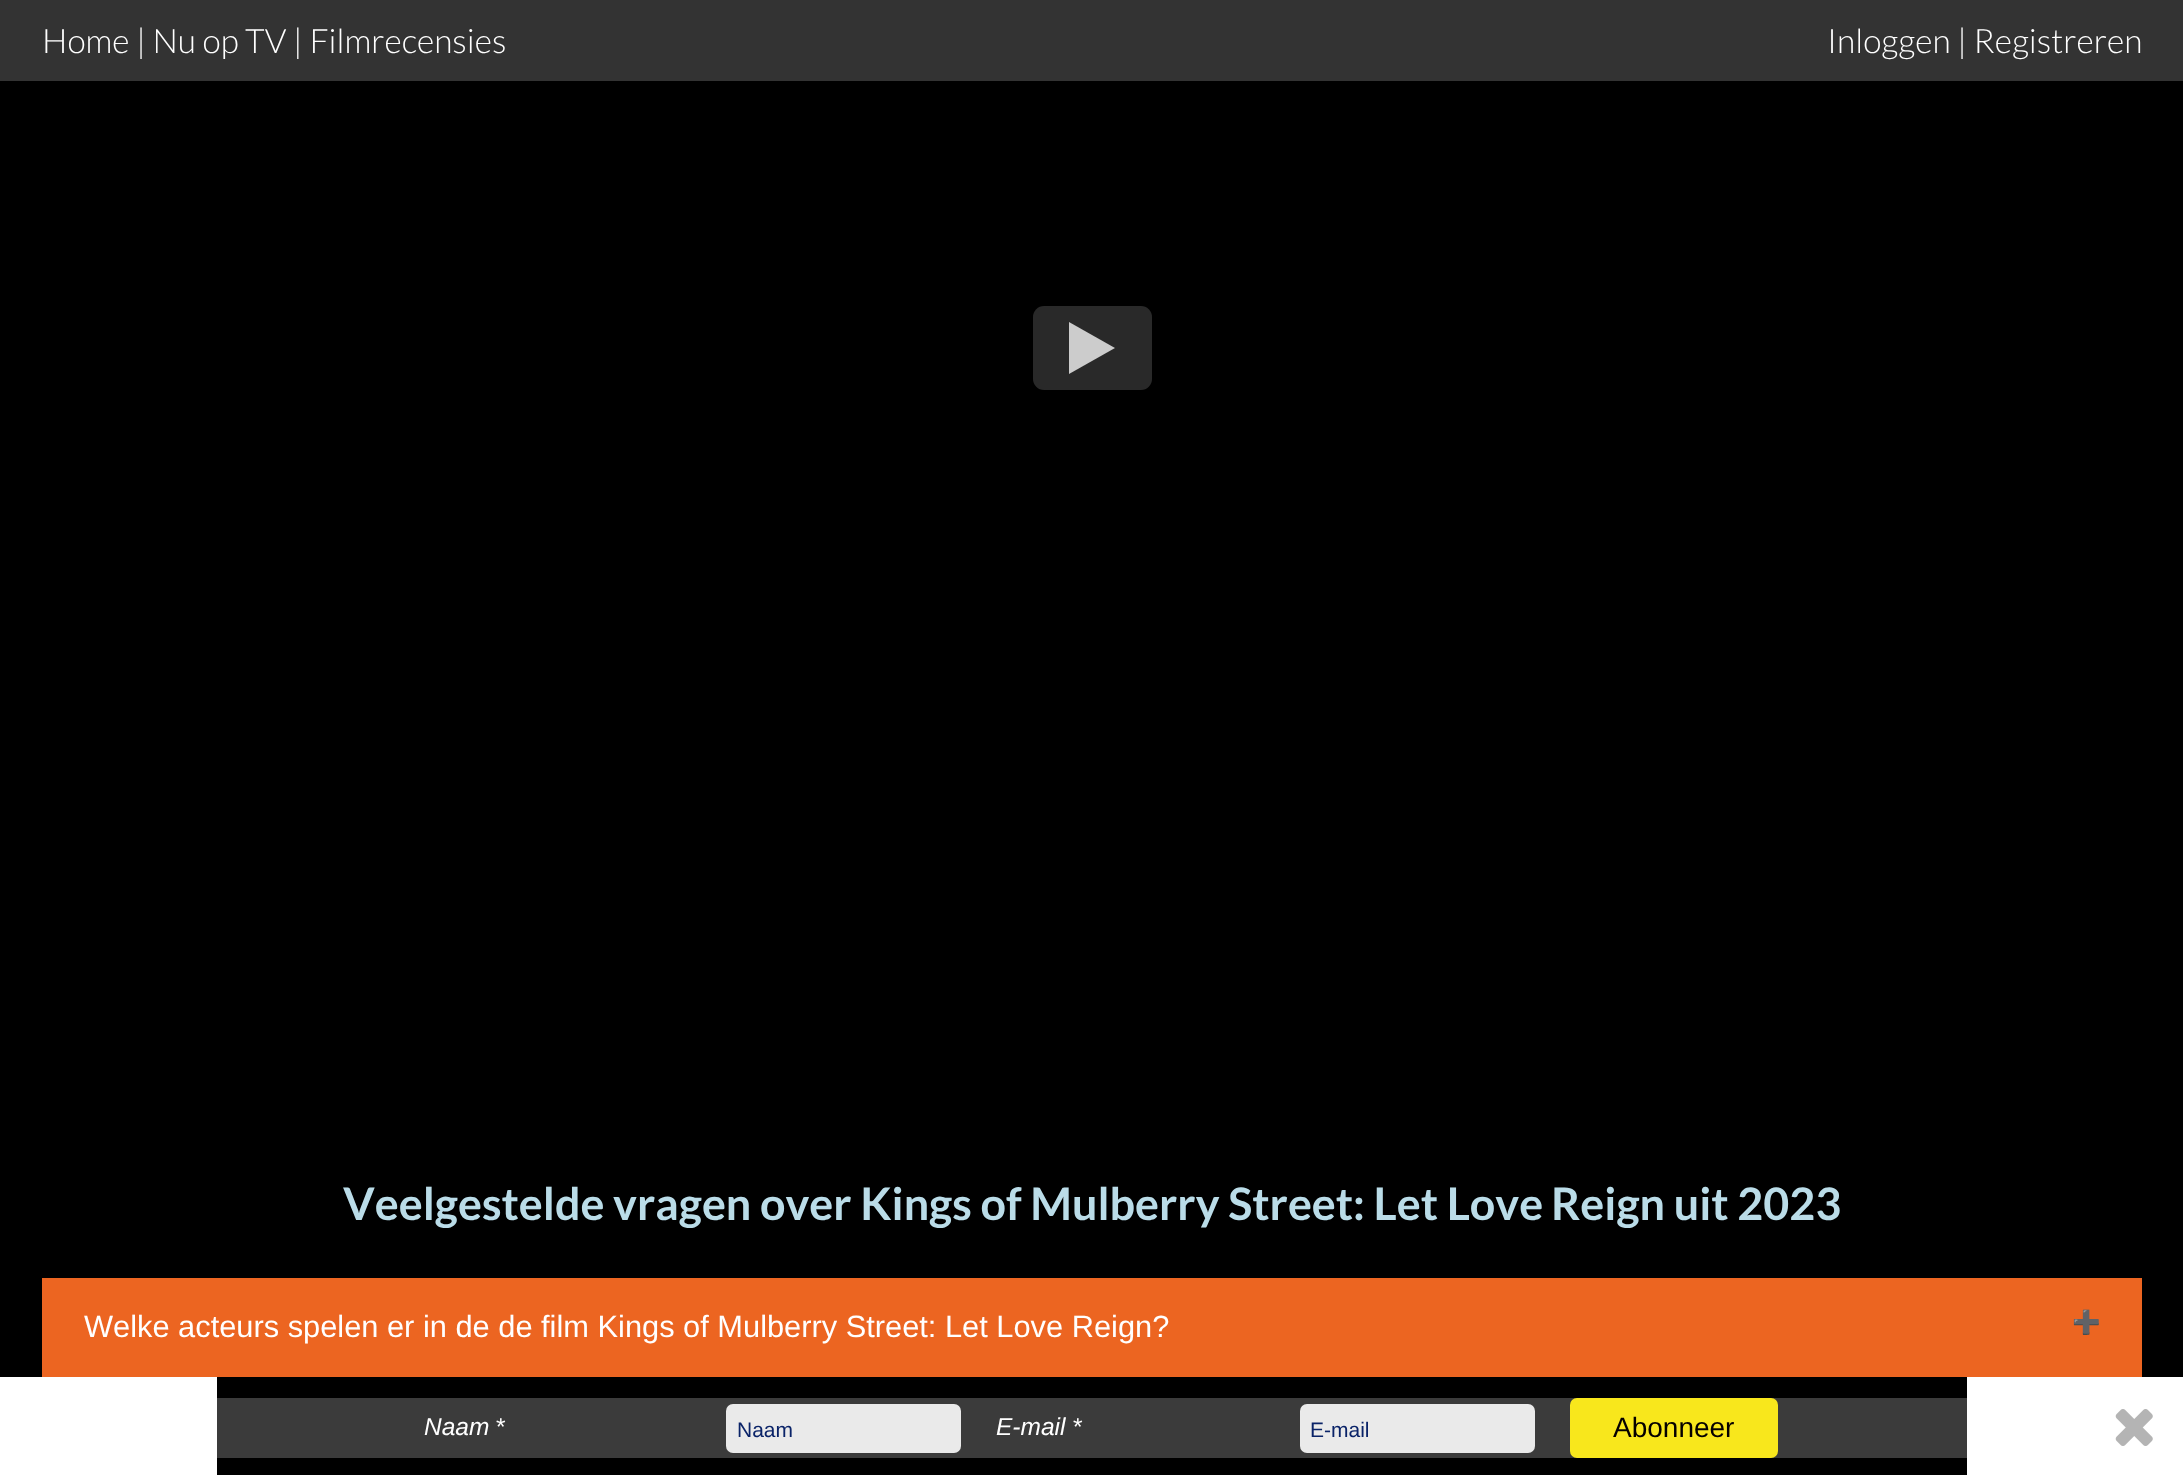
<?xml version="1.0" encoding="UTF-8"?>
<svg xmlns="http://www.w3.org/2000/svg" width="2183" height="1475">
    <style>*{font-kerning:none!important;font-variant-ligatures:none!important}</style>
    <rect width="100%" height="100%" fill="#000000"/>
    <rect x="0" y="0" width="2183" height="81" fill="#333333"/>
    <text x="42" y="53" font-family="Lato" font-size="33.6" font-weight="300" fill="#FFFFFF">Home | Nu op TV | Filmrecensies</text>
    <text x="1827" y="53" font-family="Lato" font-size="33.6" font-weight="300" fill="#FFFFFF">Inloggen | Registreren</text>
    <rect x="1033" y="306" width="119" height="84" rx="11" fill="#292929"/>
    <path d="M 1069 374 V 322 L 1115 348 Z" fill="#CCCCCC"/>
    <text x="343" y="1220" font-family="Lato" font-size="44.8" font-weight="700" fill="#BADCE8">Veelgestelde vragen over Kings of Mulberry Street: Let Love</text>
    <text x="1551" y="1220" font-family="Lato" font-size="44.8" font-weight="700" fill="#BADCE8">Reign uit 2023</text>
    <rect x="42" y="1278" width="2100" height="99" fill="#EC6521"/>
    <text x="84" y="1337" font-family="Liberation Sans" font-size="30.8" fill="#FFFFFF">Welke acteurs spelen er in de de film Kings of Mulberry Street: Let Love Reign?</text>
    <text x="2072" y="1330" font-family="Noto Color Emoji" font-size="23" fill="#FFFFFF">➕</text>
    <rect x="0" y="1377" width="2183" height="98" fill="#FFFFFF"/>
    <rect x="217" y="1377" width="1750" height="98" fill="#000000"/>
    <rect x="217" y="1398" width="1750" height="60" fill="#3B3B3B"/>
    <text x="424" y="1435" font-family="Liberation Sans" font-size="24.5" font-style="italic" fill="#FFFFFF">Naam</text>
    <text x="496" y="1435" font-family="Liberation Sans" font-size="24.5" fill="#FFFFFF">*</text>
    <rect x="726" y="1404" width="235" height="49" rx="7" fill="#EAEAEA"/>
    <text x="737" y="1437" font-family="Liberation Sans" font-size="21" fill="#0A2368">Naam</text>
    <text x="996" y="1435" font-family="Liberation Sans" font-size="24.5" font-style="italic" fill="#FFFFFF">E-mail</text>
    <text x="1073" y="1435" font-family="Liberation Sans" font-size="24.5" fill="#FFFFFF">*</text>
    <rect x="1300" y="1404" width="235" height="49" rx="7" fill="#EAEAEA"/>
    <text x="1310" y="1437" font-family="Liberation Sans" font-size="21" fill="#0A2368">E-mail</text>
    <rect x="1570" y="1398" width="208" height="60" rx="7" fill="#F8E71C"/>
    <text x="1613" y="1437" font-family="Liberation Sans" font-size="28" fill="#050000">Abonneer</text>
    <image x="2115" y="1409" width="38" height="37" href="img_01.png"/>
</svg>
